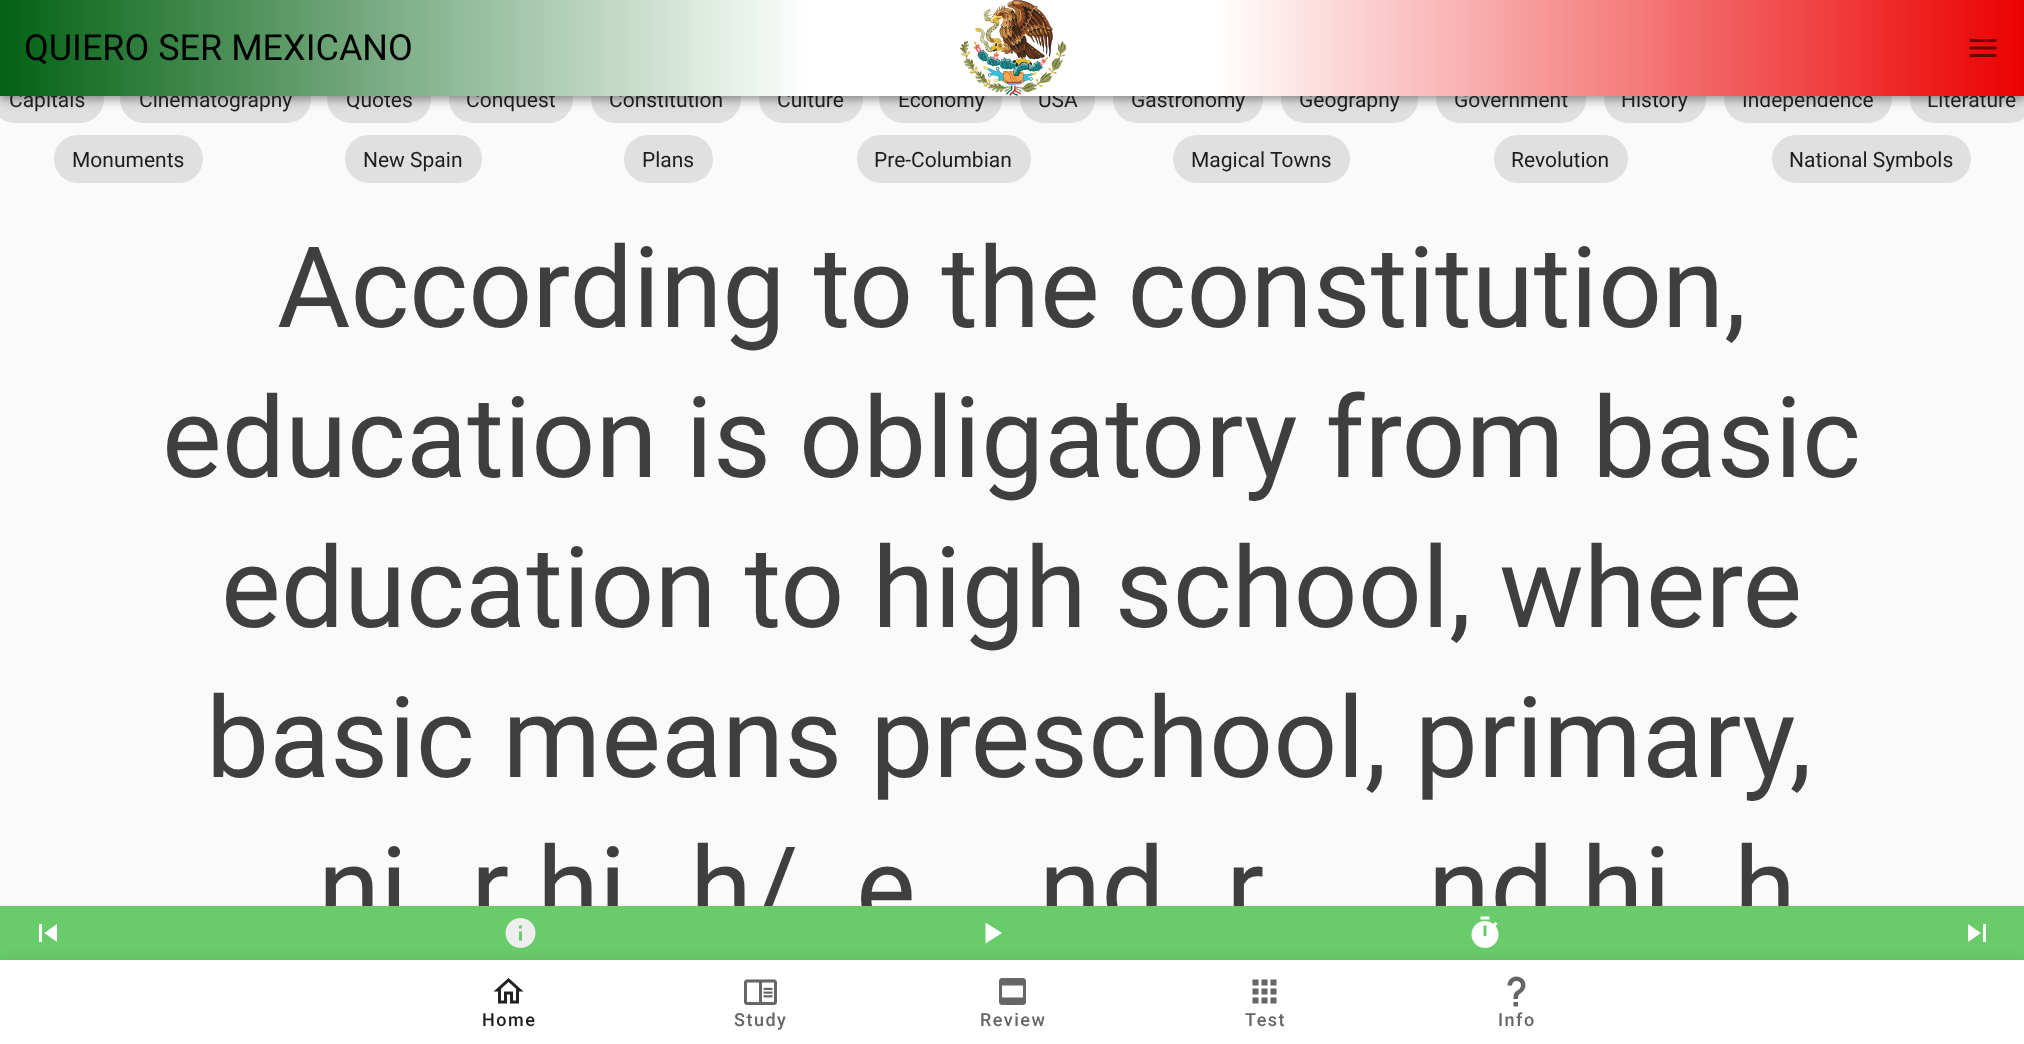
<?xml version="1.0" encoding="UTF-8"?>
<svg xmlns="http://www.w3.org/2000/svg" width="2024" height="1044">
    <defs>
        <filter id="blur1" x="-50%" y="-200%" width="200%" height="500%"><feGaussianBlur stdDeviation="7.5"/></filter>
        <filter id="blur2" x="-50%" y="-200%" width="200%" height="500%"><feGaussianBlur stdDeviation="4"/></filter>
        <filter id="blur3" x="-50%" y="-200%" width="200%" height="500%"><feGaussianBlur stdDeviation="3"/></filter>
    </defs>
    <rect width="100%" height="100%" fill="#FAFAFA"/>
    <rect x="-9" y="75" width="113" height="48" rx="24" fill="#E0E0E0"/>
    <rect x="120" y="75" width="191" height="48" rx="24" fill="#E0E0E0"/>
    <rect x="327" y="75" width="104" height="48" rx="24" fill="#E0E0E0"/>
    <rect x="449" y="75" width="124" height="48" rx="24" fill="#E0E0E0"/>
    <rect x="591" y="75" width="150" height="48" rx="24" fill="#E0E0E0"/>
    <rect x="759" y="75" width="104" height="48" rx="24" fill="#E0E0E0"/>
    <rect x="879" y="75" width="123" height="48" rx="24" fill="#E0E0E0"/>
    <rect x="1020" y="75" width="75" height="48" rx="24" fill="#E0E0E0"/>
    <rect x="1113" y="75" width="150" height="48" rx="24" fill="#E0E0E0"/>
    <rect x="1281" y="75" width="137" height="48" rx="24" fill="#E0E0E0"/>
    <rect x="1436" y="75" width="150" height="48" rx="24" fill="#E0E0E0"/>
    <rect x="1604" y="75" width="102" height="48" rx="24" fill="#E0E0E0"/>
    <rect x="1724" y="75" width="168" height="48" rx="24" fill="#E0E0E0"/>
    <rect x="1910" y="75" width="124" height="48" rx="24" fill="#E0E0E0"/>
    <rect x="0" y="2" width="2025" height="96" fill="#000000" fill-opacity="0.12" filter="url(#blur1)"/>
    <rect x="0" y="6" width="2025" height="96" fill="#000000" fill-opacity="0.14" filter="url(#blur2)"/>
    <rect x="2" y="5" width="2022" height="93" fill="#000000" fill-opacity="0.2" filter="url(#blur3)"/>
    <text x="9" y="107" font-family="Roboto" font-size="21" fill="#1D1D1D">Capitals</text>
    <text x="139" y="107" font-family="Roboto" font-size="21" fill="#1D1D1D">Cinematography</text>
    <text x="346" y="107" font-family="Roboto" font-size="21" fill="#1D1D1D">Quotes</text>
    <text x="466" y="107" font-family="Roboto" font-size="21" fill="#1D1D1D">Conquest</text>
    <text x="609" y="107" font-family="Roboto" font-size="21" fill="#1D1D1D">Constitution</text>
    <text x="777" y="107" font-family="Roboto" font-size="21" fill="#1D1D1D">Culture</text>
    <text x="898" y="107" font-family="Roboto" font-size="21" fill="#1D1D1D">Economy</text>
    <text x="1038" y="107" font-family="Roboto" font-size="21" fill="#1D1D1D">USA</text>
    <text x="1131" y="107" font-family="Roboto" font-size="21" fill="#1D1D1D">Gastronomy</text>
    <text x="1299" y="107" font-family="Roboto" font-size="21" fill="#1D1D1D">Geography</text>
    <text x="1454" y="107" font-family="Roboto" font-size="21" fill="#1D1D1D">Government</text>
    <text x="1621" y="107" font-family="Roboto" font-size="21" fill="#1D1D1D">History</text>
    <text x="1742" y="107" font-family="Roboto" font-size="21" fill="#1D1D1D">Independence</text>
    <text x="1927" y="107" font-family="Roboto" font-size="21" fill="#1D1D1D">Literature</text>
    <image x="0" y="0" width="2024" height="96" href="img_01.png"/>
    <text x="24" y="60" font-family="Roboto" font-size="36" fill="#000000">QUIERO SER MEXICANO</text>
    <image x="1969" y="39" width="28" height="18" href="img_02.png"/>
    <rect x="54" y="135" width="149" height="48" rx="24" fill="#E0E0E0"/>
    <text x="72" y="167" font-family="Roboto" font-size="21" fill="#1D1D1D">Monuments</text>
    <rect x="345" y="135" width="137" height="48" rx="24" fill="#E0E0E0"/>
    <text x="363" y="167" font-family="Roboto" font-size="21" fill="#1D1D1D">New Spain</text>
    <rect x="624" y="135" width="89" height="48" rx="24" fill="#E0E0E0"/>
    <text x="642" y="167" font-family="Roboto" font-size="21" fill="#1D1D1D">Plans</text>
    <rect x="857" y="135" width="174" height="48" rx="24" fill="#E0E0E0"/>
    <text x="874" y="167" font-family="Roboto" font-size="21" fill="#1D1D1D">Pre-Columbian</text>
    <rect x="1173" y="135" width="177" height="48" rx="24" fill="#E0E0E0"/>
    <text x="1191" y="167" font-family="Roboto" font-size="21" fill="#1D1D1D">Magical Towns</text>
    <rect x="1494" y="135" width="134" height="48" rx="24" fill="#E0E0E0"/>
    <text x="1511" y="167" font-family="Roboto" font-size="21" fill="#1D1D1D">Revolution</text>
    <rect x="1772" y="135" width="199" height="48" rx="24" fill="#E0E0E0"/>
    <text x="1789" y="167" font-family="Roboto" font-size="21" fill="#1D1D1D">National Symbols</text>
    <text x="277" y="327" font-family="Roboto" font-size="112.5" fill="#3F3F3F">According to the constitution,</text>
    <text x="162" y="477" font-family="Roboto" font-size="112.5" fill="#3F3F3F">education is obligatory from basic</text>
    <text x="221" y="627" font-family="Roboto" font-size="112.5" fill="#3F3F3F">education to high school, where</text>
    <text x="206" y="777" font-family="Roboto" font-size="112.5" fill="#3F3F3F">basic means preschool, primary,</text>
    <text x="318" y="927" font-family="Roboto" font-size="112.5" fill="#3F3F3F">ni</text>
    <text x="471" y="927" font-family="Roboto" font-size="112.5" fill="#3F3F3F">r hi</text>
    <text x="690" y="927" font-family="Roboto" font-size="112.5" fill="#3F3F3F">h/</text>
    <text x="856" y="927" font-family="Roboto" font-size="112.5" fill="#3F3F3F">e</text>
    <text x="1039" y="927" font-family="Roboto" font-size="112.5" fill="#3F3F3F">nd</text>
    <text x="1226" y="927" font-family="Roboto" font-size="112.5" fill="#3F3F3F">r</text>
    <text x="1428" y="927" font-family="Roboto" font-size="112.5" fill="#3F3F3F">nd hi</text>
    <text x="1734" y="927" font-family="Roboto" font-size="112.5" fill="#3F3F3F">h</text>
    <rect x="0" y="906" width="2024" height="54" fill="#69CB69"/>
    <image x="39" y="924" width="18" height="18" href="img_03.png"/>
    <image x="505" y="918" width="31" height="30" href="img_04.png"/>
    <path d="M 985.5 922.5 V 943.5 L 1002 933 Z" fill="#FFFFFF"/>
    <image x="1471" y="916" width="28" height="32" href="img_05.png"/>
    <image x="1968" y="924" width="18" height="18" href="img_06.png"/>
    <rect x="0" y="962" width="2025" height="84" fill="#000000" fill-opacity="0.12" filter="url(#blur1)"/>
    <rect x="0" y="960" width="2024" height="84" fill="#FFFFFF"/>
    <image x="493" y="978" width="31" height="26" href="img_07.png"/>
    <text x="482" y="1026" font-family="Roboto" font-size="18" font-weight="500" letter-spacing="1.5" fill="#1D1D1D">Home</text>
    <image x="744" y="979" width="33" height="26" href="img_08.png"/>
    <text x="734" y="1026" font-family="Roboto" font-size="18" font-weight="500" letter-spacing="1.5" fill="#666666">Study</text>
    <image x="999" y="978" width="27" height="27" href="img_09.png"/>
    <text x="980" y="1026" font-family="Roboto" font-size="18" font-weight="500" letter-spacing="1.5" fill="#666666">Review</text>
    <image x="1252" y="979" width="25" height="25" href="img_10.png"/>
    <text x="1245" y="1026" font-family="Roboto" font-size="18" font-weight="500" letter-spacing="1.5" fill="#666666">Test</text>
    <image x="1507" y="976" width="19" height="31" href="img_11.png"/>
    <text x="1498" y="1026" font-family="Roboto" font-size="18" font-weight="500" letter-spacing="1.5" fill="#666666">Info</text>
</svg>
